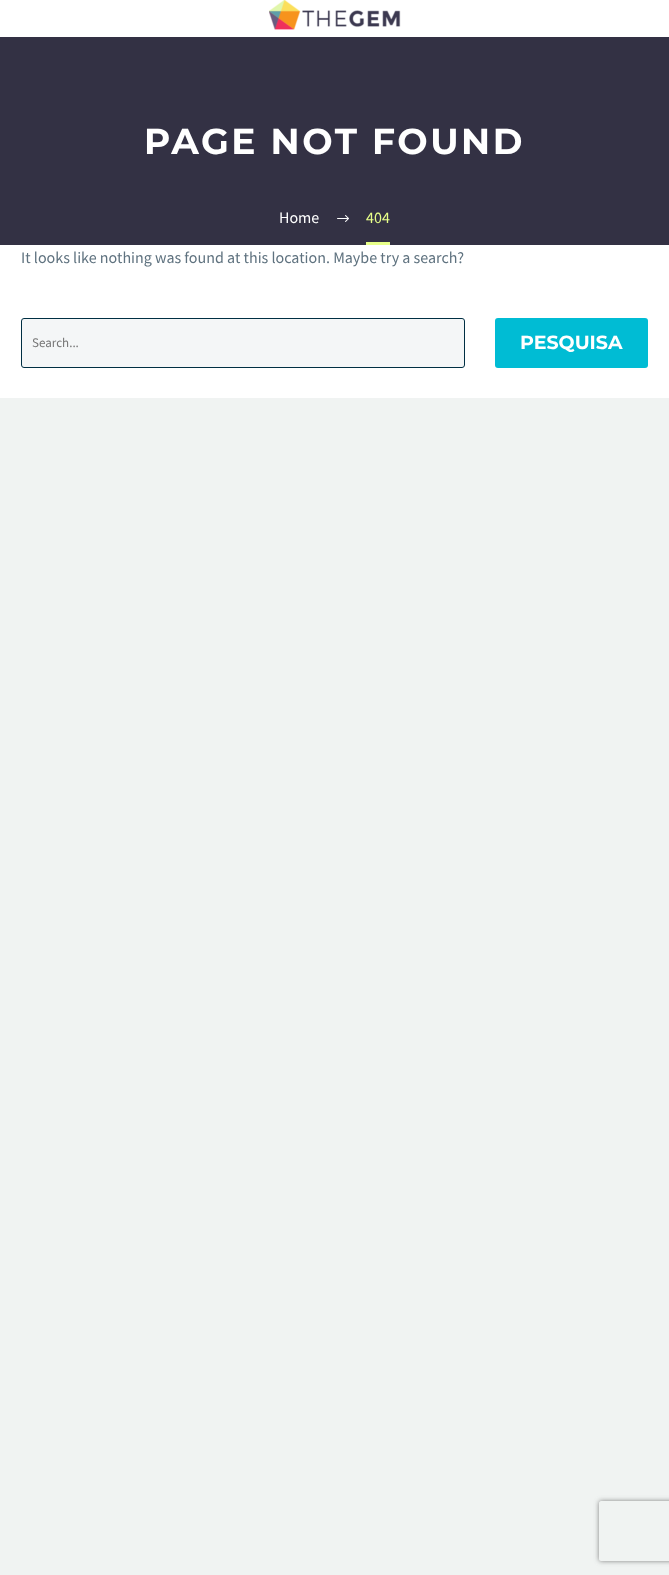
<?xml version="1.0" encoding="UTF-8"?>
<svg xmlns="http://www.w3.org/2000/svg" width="669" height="1575">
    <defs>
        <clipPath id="clip1"><path d="M 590 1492 H 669 V 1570 H 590 Z M 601 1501 H 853 C 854 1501 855 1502 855 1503 V 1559 C 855 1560 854 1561 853 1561 H 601 C 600 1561 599 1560 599 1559 V 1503 C 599 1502 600 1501 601 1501 Z" clip-rule="evenodd"/></clipPath>
        <filter id="blur1" x="-50%" y="-200%" width="200%" height="500%"><feGaussianBlur stdDeviation="2.5"/></filter>
    </defs>
    <rect width="100%" height="100%" fill="#F0F3F2"/>
    <rect x="0" y="0" width="669" height="37" fill="#FFFFFF"/>
    <image x="269" y="0" width="132" height="30" href="img_01.png"/>
    <rect x="0" y="37" width="669" height="208" fill="#333144"/>
    <text x="144" y="154" font-family="Montserrat" font-size="36" font-weight="700" letter-spacing="2.5" fill="#FFFFFF">PAGE NOT FOUND</text>
    <text x="279" y="223" font-family="Source Sans Pro" font-size="16" fill="#FFFFFF">Home</text>
    <image x="337" y="215" width="12" height="7" href="img_02.png"/>
    <rect x="366" y="242" width="24" height="3" fill="#E7FF89"/>
    <text x="366" y="223" font-family="Source Sans Pro" font-size="16" fill="#E7FF89">404</text>
    <rect x="0" y="245" width="669" height="153" fill="#FFFFFF"/>
    <text x="21" y="263" font-family="Source Sans Pro" font-size="16" fill="#5F727F">It looks like nothing was found at this location. Maybe try a search?</text>
    <rect x="21.5" y="318.5" width="443" height="49" rx="2.5" fill="#F4F6F7" stroke="#002F43"/>
    <text x="32" y="347" font-family="Source Sans Pro" font-size="13" fill="#757575">Search...</text>
    <rect x="495" y="318" width="153" height="50" rx="3" fill="#00BCD4"/>
    <text x="520" y="349" font-family="Montserrat" font-size="19" font-weight="700" fill="#FFFFFF">PESQUISA</text>
    <g clip-path="url(#clip1)">
        <rect x="599" y="1501" width="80" height="60" rx="2" fill="#808080" filter="url(#blur1)"/>
    </g>
</svg>
